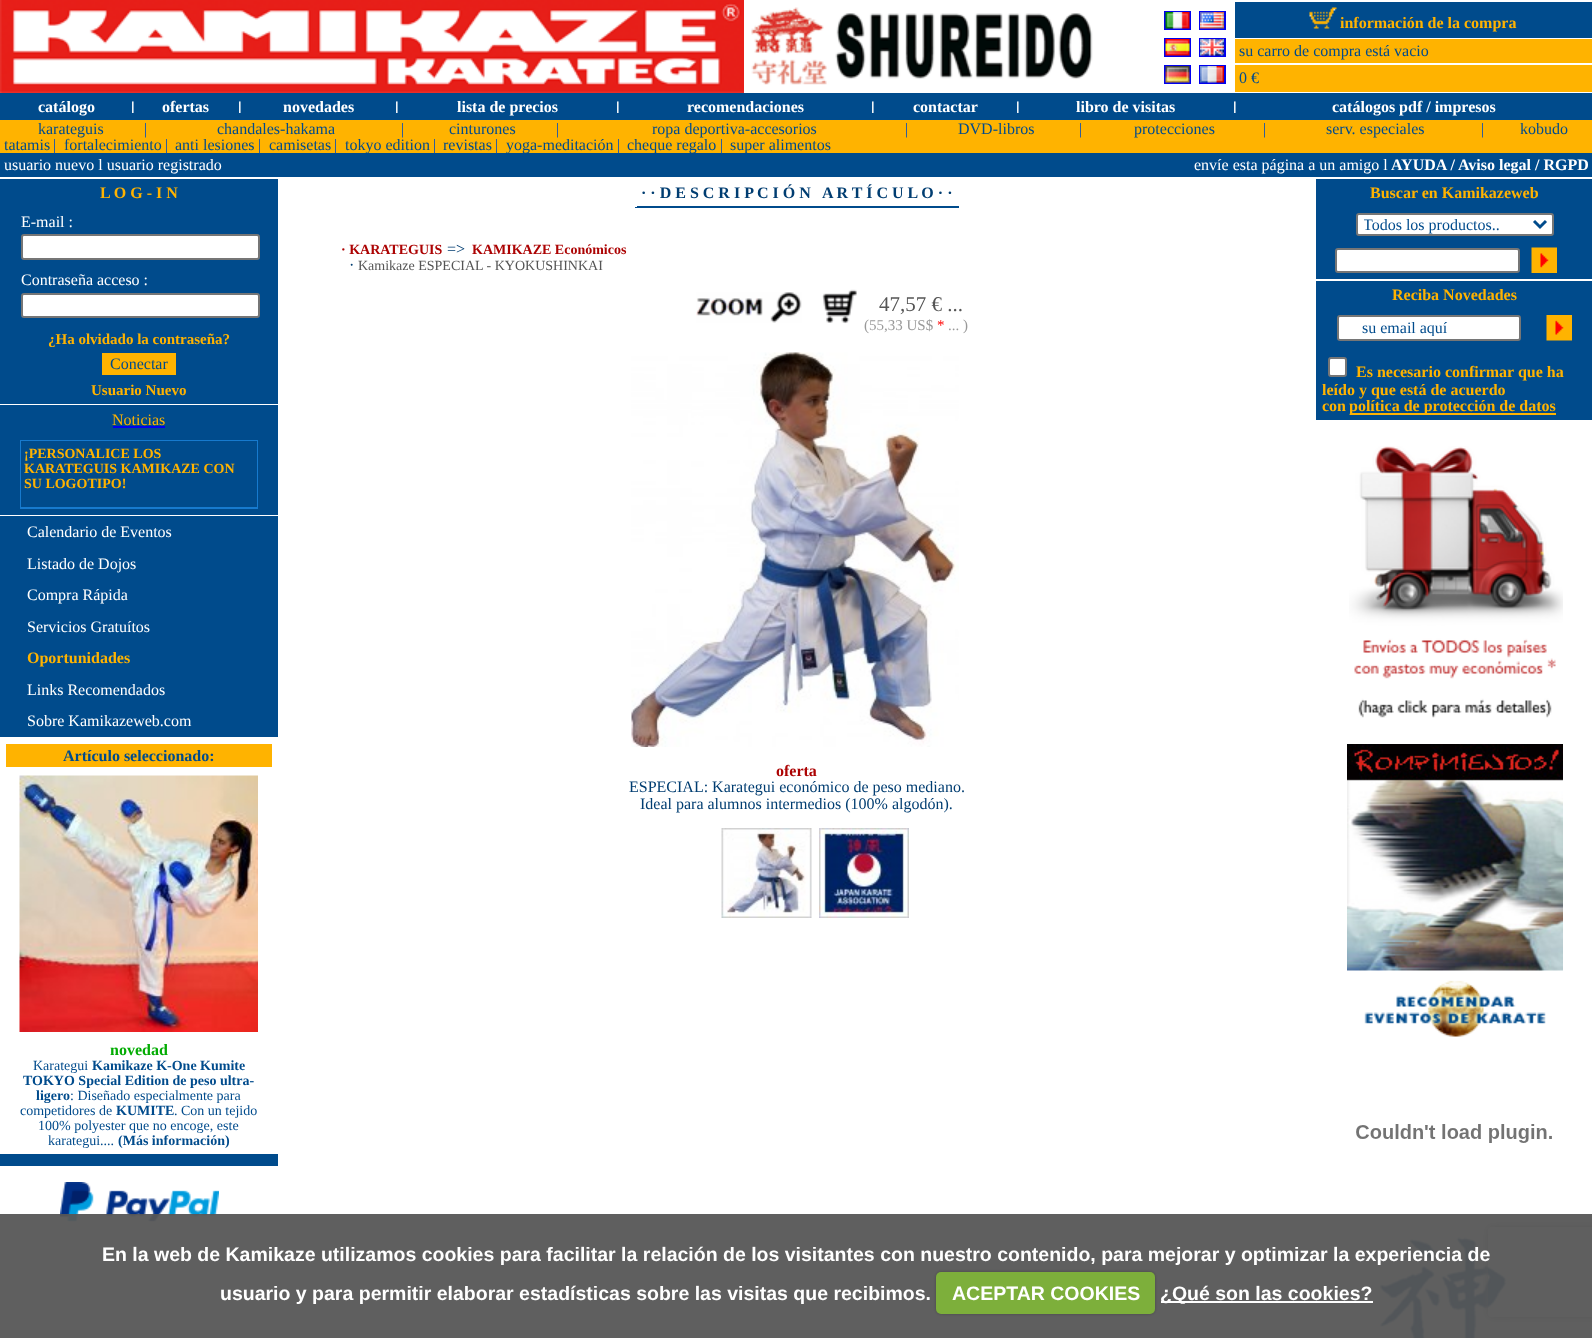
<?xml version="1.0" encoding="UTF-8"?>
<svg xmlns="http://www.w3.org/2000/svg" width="1592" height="1338">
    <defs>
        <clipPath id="clip1"><rect x="1364" y="215" width="165" height="19"/></clipPath>
        <clipPath id="clip2"><rect x="1343" y="320" width="172" height="16"/></clipPath>
        <clipPath id="clip3"><path d="M 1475 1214 H 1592 V 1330 H 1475 Z M 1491 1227 H 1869 C 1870.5 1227 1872 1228.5 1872 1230 V 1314 C 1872 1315.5 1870.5 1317 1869 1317 H 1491 C 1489.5 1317 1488 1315.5 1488 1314 V 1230 C 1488 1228.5 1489.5 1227 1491 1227 Z" clip-rule="evenodd"/></clipPath>
        <filter id="blur1" x="-50%" y="-200%" width="200%" height="500%"><feGaussianBlur stdDeviation="4"/></filter>
        <filter id="blur2" x="-50%" y="-200%" width="200%" height="500%"><feGaussianBlur stdDeviation="1.5"/></filter>
    </defs>
    <rect width="100%" height="100%" fill="#FFFFFF"/>
    <image x="0" y="0" width="744" height="93" href="img_01.png"/>
    <image x="751" y="7" width="342" height="78" href="img_02.png"/>
    <rect x="1165" y="12" width="25" height="17" fill="none" stroke="#0000EE" stroke-width="2"/>
    <image x="1165" y="12" width="25" height="17" href="img_03.png"/>
    <rect x="1200" y="12" width="25" height="17" fill="none" stroke="#0000EE" stroke-width="2"/>
    <image x="1200" y="12" width="24" height="17" href="img_04.png"/>
    <rect x="1165" y="39" width="25" height="17" fill="none" stroke="#0000EE" stroke-width="2"/>
    <image x="1165" y="39" width="25" height="17" href="img_05.png"/>
    <rect x="1200" y="39" width="25" height="17" fill="none" stroke="#0000EE" stroke-width="2"/>
    <image x="1200" y="39" width="24" height="17" href="img_06.png"/>
    <rect x="1165" y="66" width="25" height="17" fill="none" stroke="#0000EE" stroke-width="2"/>
    <image x="1165" y="66" width="25" height="17" href="img_07.png"/>
    <rect x="1200" y="66" width="25" height="17" fill="none" stroke="#0000EE" stroke-width="2"/>
    <image x="1200" y="66" width="24" height="17" href="img_08.png"/>
    <rect x="1235" y="2" width="357" height="36" fill="#004B8C"/>
    <image x="1309" y="7" width="28" height="22" href="img_09.png"/>
    <text x="1340" y="28" font-family="Liberation Serif" font-size="16" font-weight="700" fill="#FFB300">información de la compra</text>
    <rect x="1235" y="39" width="357" height="24" fill="#FFB300"/>
    <text x="1239" y="56" font-family="Liberation Serif" font-size="16" fill="#004B8C">su carro de compra está vacio</text>
    <rect x="1235" y="65" width="357" height="27" fill="#FFB300"/>
    <text x="1239" y="83" font-family="Liberation Serif" font-size="16" fill="#004B8C">0 €</text>
    <rect x="0" y="93" width="1592" height="27" fill="#004B8C"/>
    <text x="38" y="112" font-family="Liberation Serif" font-size="16" font-weight="700" fill="#FFFFFF">catálogo</text>
    <text x="131" y="113" font-family="Liberation Sans" font-size="16" fill="#FFFFFF">l</text>
    <text x="162" y="112" font-family="Liberation Serif" font-size="16" font-weight="700" fill="#FFFFFF">ofertas</text>
    <text x="238" y="113" font-family="Liberation Sans" font-size="16" fill="#FFFFFF">l</text>
    <text x="283" y="112" font-family="Liberation Serif" font-size="16" font-weight="700" fill="#FFFFFF">novedades</text>
    <text x="395" y="113" font-family="Liberation Sans" font-size="16" fill="#FFFFFF">l</text>
    <text x="457" y="112" font-family="Liberation Serif" font-size="16" font-weight="700" fill="#FFFFFF">lista de precios</text>
    <text x="616" y="113" font-family="Liberation Sans" font-size="16" fill="#FFFFFF">l</text>
    <text x="687" y="112" font-family="Liberation Serif" font-size="16" font-weight="700" fill="#FFFFFF">recomendaciones</text>
    <text x="871" y="113" font-family="Liberation Sans" font-size="16" fill="#FFFFFF">l</text>
    <text x="913" y="112" font-family="Liberation Serif" font-size="16" font-weight="700" fill="#FFFFFF">contactar</text>
    <text x="1016" y="113" font-family="Liberation Sans" font-size="16" fill="#FFFFFF">l</text>
    <text x="1076" y="112" font-family="Liberation Serif" font-size="16" font-weight="700" fill="#FFFFFF">libro de visitas</text>
    <text x="1233" y="113" font-family="Liberation Sans" font-size="16" fill="#FFFFFF">l</text>
    <text x="1332" y="112" font-family="Liberation Serif" font-size="16" font-weight="700" fill="#FFFFFF">catálogos pdf / impresos</text>
    <rect x="0" y="120" width="1592" height="33" fill="#FFB300"/>
    <text x="38" y="134" font-family="Liberation Serif" font-size="16" fill="#004B8C">karateguis</text>
    <text x="144" y="134" font-family="Liberation Serif" font-size="16" fill="#004BC0">|</text>
    <text x="217" y="134" font-family="Liberation Serif" font-size="16" fill="#004B8C">chandales-hakama</text>
    <text x="401" y="134" font-family="Liberation Serif" font-size="16" fill="#004BC0">|</text>
    <text x="449" y="134" font-family="Liberation Serif" font-size="16" fill="#004B8C">cinturones</text>
    <text x="556" y="134" font-family="Liberation Serif" font-size="16" fill="#004BC0">|</text>
    <text x="652" y="134" font-family="Liberation Serif" font-size="16" fill="#004B8C">ropa deportiva-accesorios</text>
    <text x="905" y="134" font-family="Liberation Serif" font-size="16" fill="#004BC0">|</text>
    <text x="958" y="134" font-family="Liberation Serif" font-size="16" fill="#004B8C">DVD-libros</text>
    <text x="1079" y="134" font-family="Liberation Serif" font-size="16" fill="#004BC0">|</text>
    <text x="1134" y="134" font-family="Liberation Serif" font-size="16" fill="#004B8C">protecciones</text>
    <text x="1263" y="134" font-family="Liberation Serif" font-size="16" fill="#004BC0">|</text>
    <text x="1326" y="134" font-family="Liberation Serif" font-size="16" fill="#004B8C">serv. especiales</text>
    <text x="1481" y="134" font-family="Liberation Serif" font-size="16" fill="#004BC0">|</text>
    <text x="1520" y="134" font-family="Liberation Serif" font-size="16" fill="#004B8C">kobudo</text>
    <text x="4" y="150" font-family="Liberation Serif" font-size="16" fill="#004B8C">tatamis</text>
    <rect x="0" y="153" width="1592" height="24" fill="#004B8C"/>
    <text x="53" y="150" font-family="Liberation Serif" font-size="16" fill="#004BC0">|</text>
    <text x="64" y="150" font-family="Liberation Serif" font-size="16" fill="#004B8C">fortalecimiento</text>
    <text x="165" y="150" font-family="Liberation Serif" font-size="16" fill="#004BC0">|</text>
    <text x="175" y="150" font-family="Liberation Serif" font-size="16" fill="#004B8C">anti lesiones</text>
    <text x="258" y="150" font-family="Liberation Serif" font-size="16" fill="#004BC0">|</text>
    <text x="269" y="150" font-family="Liberation Serif" font-size="16" fill="#004B8C">camisetas</text>
    <text x="334" y="150" font-family="Liberation Serif" font-size="16" fill="#004BC0">|</text>
    <text x="345" y="150" font-family="Liberation Serif" font-size="16" fill="#004B8C">tokyo edition</text>
    <text x="433" y="150" font-family="Liberation Serif" font-size="16" fill="#004BC0">|</text>
    <text x="443" y="150" font-family="Liberation Serif" font-size="16" fill="#004B8C">revistas</text>
    <text x="495" y="150" font-family="Liberation Serif" font-size="16" fill="#004BC0">|</text>
    <text x="506" y="150" font-family="Liberation Serif" font-size="16" fill="#004B8C">yoga-meditación</text>
    <text x="617" y="150" font-family="Liberation Serif" font-size="16" fill="#004BC0">|</text>
    <text x="627" y="150" font-family="Liberation Serif" font-size="16" fill="#004B8C">cheque regalo</text>
    <text x="720" y="150" font-family="Liberation Serif" font-size="16" fill="#004BC0">|</text>
    <text x="730" y="150" font-family="Liberation Serif" font-size="16" fill="#004B8C">super alimentos</text>
    <text x="4" y="170" font-family="Liberation Serif" font-size="16" fill="#FFFFFF">usuario nuevo l usuario registrado</text>
    <text x="1194" y="170" font-family="Liberation Serif" font-size="16" fill="#FFFFFF">envíe esta página a un amigo l</text>
    <text x="1391" y="170" font-family="Liberation Serif" font-size="16" font-weight="700" fill="#FFFFFF">AYUDA / Aviso legal / RGPD</text>
    <rect x="0" y="179" width="278" height="225" fill="#004B8C"/>
    <text x="100" y="198" font-family="Liberation Serif" font-size="16" font-weight="700" fill="#FFB300">L O G - I N</text>
    <text x="21" y="227" font-family="Liberation Serif" font-size="16" fill="#FFFFFF">E-mail :</text>
    <rect x="22" y="235" width="237" height="24" rx="2" fill="#FFFFFF" stroke="#767676" stroke-width="2"/>
    <text x="21" y="285" font-family="Liberation Serif" font-size="16" fill="#FFFFFF">Contraseña acceso :</text>
    <rect x="22" y="294" width="237" height="23" rx="2" fill="#FFFFFF" stroke="#767676" stroke-width="2"/>
    <text x="48" y="344" font-family="Liberation Serif" font-size="15" font-weight="700" fill="#FFB300">¿Ha olvidado la contraseña?</text>
    <rect x="102" y="353" width="74" height="22" fill="#FFB300"/>
    <text x="110" y="369" font-family="Liberation Serif" font-size="16" fill="#004B8C">Conectar</text>
    <text x="91" y="395" font-family="Liberation Serif" font-size="15" font-weight="700" fill="#FFB300">Usuario Nuevo</text>
    <rect x="0" y="405" width="278" height="110" fill="#004B8C"/>
    <text x="112" y="425" font-family="Liberation Serif" font-size="16" fill="#FFB300">Noticias</text>
    <rect x="113" y="426" width="52" height="2" fill="#0000EE"/>
    <rect x="21" y="441" width="236" height="67" fill="none" stroke="#177ACE" stroke-width="2"/>
    <rect x="21" y="441" width="236" height="66" fill="#004B8C"/>
    <text font-family="Liberation Serif" font-size="14" font-weight="700" fill="#FFB300">
        <tspan x="24" y="458">¡PERSONALICE LOS</tspan>
        <tspan x="24" y="473">KARATEGUIS KAMIKAZE CON</tspan>
        <tspan x="24" y="488">SU LOGOTIPO!</tspan>
    </text>
    <rect x="0" y="516" width="278" height="221" fill="#004B8C"/>
    <text x="27" y="537" font-family="Liberation Serif" font-size="16" fill="#FFFFFF">Calendario de Eventos</text>
    <text font-family="Liberation Serif" font-size="16" fill="#FFFFFF">
        <tspan x="27" y="569">Listado de Dojos</tspan>
        <tspan x="27" y="600">Compra Rápida</tspan>
    </text>
    <text x="27" y="632" font-family="Liberation Serif" font-size="16" fill="#FFFFFF">Servicios Gratuítos</text>
    <text x="27" y="663" font-family="Liberation Serif" font-size="16" font-weight="700" fill="#FFB300">Oportunidades</text>
    <text font-family="Liberation Serif" font-size="16" fill="#FFFFFF">
        <tspan x="27" y="695">Links Recomendados</tspan>
        <tspan x="27" y="726">Sobre Kamikazeweb.com</tspan>
    </text>
    <rect x="6" y="744" width="266" height="23" fill="#FFB300"/>
    <text x="63" y="761" font-family="Liberation Serif" font-size="16" font-weight="700" fill="#004B8C">Artículo seleccionado:</text>
    <image x="19" y="775" width="239" height="257" href="img_10.png"/>
    <text x="110" y="1055" font-family="Liberation Serif" font-size="16" font-weight="700" fill="#03AC03">novedad</text>
    <text x="33" y="1070" font-family="Liberation Serif" font-size="14" fill="#004B8C">Karategui</text>
    <text x="92" y="1070" font-family="Liberation Serif" font-size="14" font-weight="700" fill="#004B8C">Kamikaze K-One Kumite</text>
    <text x="23" y="1085" font-family="Liberation Serif" font-size="14" font-weight="700" fill="#004B8C">TOKYO Special Edition de peso ultra-</text>
    <text x="36" y="1100" font-family="Liberation Serif" font-size="14" font-weight="700" fill="#004B8C">ligero</text>
    <text x="70" y="1100" font-family="Liberation Serif" font-size="14" fill="#004B8C">: Diseñado especialmente para</text>
    <text x="20" y="1115" font-family="Liberation Serif" font-size="14" fill="#004B8C">competidores de</text>
    <text x="116" y="1115" font-family="Liberation Serif" font-size="14" font-weight="700" fill="#004B8C">KUMITE</text>
    <text x="174" y="1115" font-family="Liberation Serif" font-size="14" fill="#004B8C">. Con un tejido</text>
    <text x="38" y="1130" font-family="Liberation Serif" font-size="14" fill="#004B8C">100% polyester que no encoge, este</text>
    <text x="48" y="1145" font-family="Liberation Serif" font-size="14" fill="#004B8C">karategui....</text>
    <text x="118" y="1145" font-family="Liberation Serif" font-size="14" font-weight="700" fill="#004B8C">(Más información)</text>
    <rect x="0" y="1154" width="278" height="12" fill="#004B8C"/>
    <image x="60" y="1182" width="159" height="40" href="img_11.png"/>
    <rect x="635" y="206" width="324" height="2" fill="#004B8C"/>
    <rect x="635" y="206" width="2" height="1" fill="#FFFFFF"/>
    <text x="641" y="198" font-family="Liberation Serif" font-size="16" font-weight="700" fill="#003D71" xml:space="preserve">· · D E S C R I P C I Ó N   A R T Í C U L O · ·</text>
    <text x="341" y="254" font-family="Liberation Serif" font-size="14" font-weight="700" fill="#AC0303">· KARATEGUIS</text>
    <text x="447" y="254" font-family="Liberation Serif" font-size="16" fill="#003D71">=&gt;</text>
    <text x="472" y="254" font-family="Liberation Serif" font-size="14" font-weight="700" fill="#AC0303">KAMIKAZE Económicos</text>
    <text x="349" y="270" font-family="Liberation Serif" font-size="16" fill="#003D71">·</text>
    <text x="358" y="270" font-family="Liberation Serif" font-size="14" fill="#555555">Kamikaze ESPECIAL - KYOKUSHINKAI</text>
    <image x="696" y="292" width="106" height="31" href="img_12.png"/>
    <image x="822" y="289" width="35" height="35" href="img_13.png"/>
    <text x="879" y="311" font-family="Liberation Serif" font-size="21" fill="#555555">47,57 € ...</text>
    <text x="864" y="330" font-family="Liberation Serif" font-size="15" fill="#999999">(55,33 US$</text>
    <text x="937" y="330" font-family="Liberation Serif" font-size="15" fill="#FF0000">*</text>
    <text x="948" y="330" font-family="Liberation Serif" font-size="15" fill="#999999">... )</text>
    <image x="631" y="352" width="328" height="395" href="img_14.png"/>
    <text x="776" y="776" font-family="Liberation Serif" font-size="16" font-weight="700" fill="#AC0303">oferta</text>
    <text x="629" y="792" font-family="Liberation Serif" font-size="16" fill="#003D71">ESPECIAL: Karategui económico de peso mediano.</text>
    <text x="640" y="809" font-family="Liberation Serif" font-size="16" fill="#003D71">Ideal para alumnos intermedios (100% algodón).</text>
    <image x="721" y="828" width="91" height="90" href="img_15.png"/>
    <image x="819" y="828" width="90" height="90" href="img_16.png"/>
    <rect x="1316" y="179" width="276" height="100" fill="#004B8C"/>
    <text x="1370" y="198" font-family="Liberation Serif" font-size="16" font-weight="700" fill="#FFB300">Buscar en Kamikazeweb</text>
    <rect x="1357" y="214" width="196" height="21" rx="2" fill="#FFFFFF" stroke="#767676" stroke-width="2"/>
    <path d="M 1534 221 L 1540 227 L 1546 221" fill="none" stroke="#004B8C" stroke-width="3"/>
    <g clip-path="url(#clip1)">
        <text x="1363" y="230" font-family="Liberation Serif" font-size="16" fill="#004B8C">Todos los productos..</text>
    </g>
    <rect x="1336" y="249" width="183" height="23" rx="2" fill="#FFFFFF" stroke="#767676" stroke-width="2"/>
    <image x="1531" y="247" width="26" height="26" href="img_17.png"/>
    <rect x="1316" y="281" width="276" height="139" fill="#004B8C"/>
    <text x="1392" y="300" font-family="Liberation Serif" font-size="16" font-weight="700" fill="#FFB300">Reciba Novedades</text>
    <rect x="1338" y="316" width="182" height="24" rx="2" fill="#FFFFFF" stroke="#767676" stroke-width="2"/>
    <g clip-path="url(#clip2)">
        <text x="1362" y="333" font-family="Liberation Serif" font-size="16" fill="#004B8C">su email aquí</text>
    </g>
    <image x="1546" y="315" width="26" height="26" href="img_18.png"/>
    <image x="1376" y="1235" width="134" height="103" href="img_23.png"/>
    <g clip-path="url(#clip3)">
        <rect x="1488" y="1227" width="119" height="90" rx="3" fill="#808080" filter="url(#blur1)"/>
    </g>
    <rect x="1329" y="358" width="17" height="18" rx="2" fill="#FFFFFF" stroke="#767676" stroke-width="2"/>
    <text x="1356" y="377" font-family="Liberation Serif" font-size="16" font-weight="700" fill="#FFB300">Es necesario confirmar que ha</text>
    <text font-family="Liberation Serif" font-size="16" font-weight="700" fill="#FFB300">
        <tspan x="1322" y="395">leído y que está de acuerdo</tspan>
        <tspan x="1322" y="411">con</tspan>
    </text>
    <rect x="1350" y="413" width="206" height="2" fill="#FFB300"/>
    <text x="1349" y="411" font-family="Liberation Serif" font-size="16" font-weight="700" fill="#FFB300">política de protección de datos</text>
    <image x="1349" y="446" width="214" height="272" href="img_19.png"/>
    <image x="1347" y="744" width="216" height="227" href="img_20.png"/>
    <image x="1364" y="980" width="182" height="57" href="img_21.png"/>
    <image x="1356" y="1124" width="196" height="19" href="img_22.png"/>
    <rect x="0" y="1214" width="1592" height="124" fill="#565656" fill-opacity="0.95"/>
    <text x="102" y="1261" font-family="Liberation Sans" font-size="19.5" font-weight="700" fill="#FFFFFF">En la web de Kamikaze utilizamos cookies para facilitar la relación de los visitantes con nuestro contenido, para mejorar y optimizar la experiencia de</text>
    <text x="220" y="1300" font-family="Liberation Sans" font-size="19.5" font-weight="700" fill="#FFFFFF">usuario y para permitir elaborar estadísticas sobre las visitas que recibimos.</text>
    <rect x="936" y="1272" width="219" height="42" rx="5" fill="#000000" fill-opacity="0.25" filter="url(#blur2)"/>
    <rect x="936" y="1272" width="219" height="42" rx="5" fill="#7DAF3B"/>
    <text x="952" y="1300" font-family="Liberation Sans" font-size="19.5" font-weight="700" fill="#FFFFFF">ACEPTAR COOKIES</text>
    <rect x="1161" y="1301" width="212" height="2" fill="#FFFFFF"/>
    <text x="1160" y="1300" font-family="Liberation Sans" font-size="19.5" font-weight="700" fill="#FFFFFF">¿Qué son las cookies?</text>
</svg>
